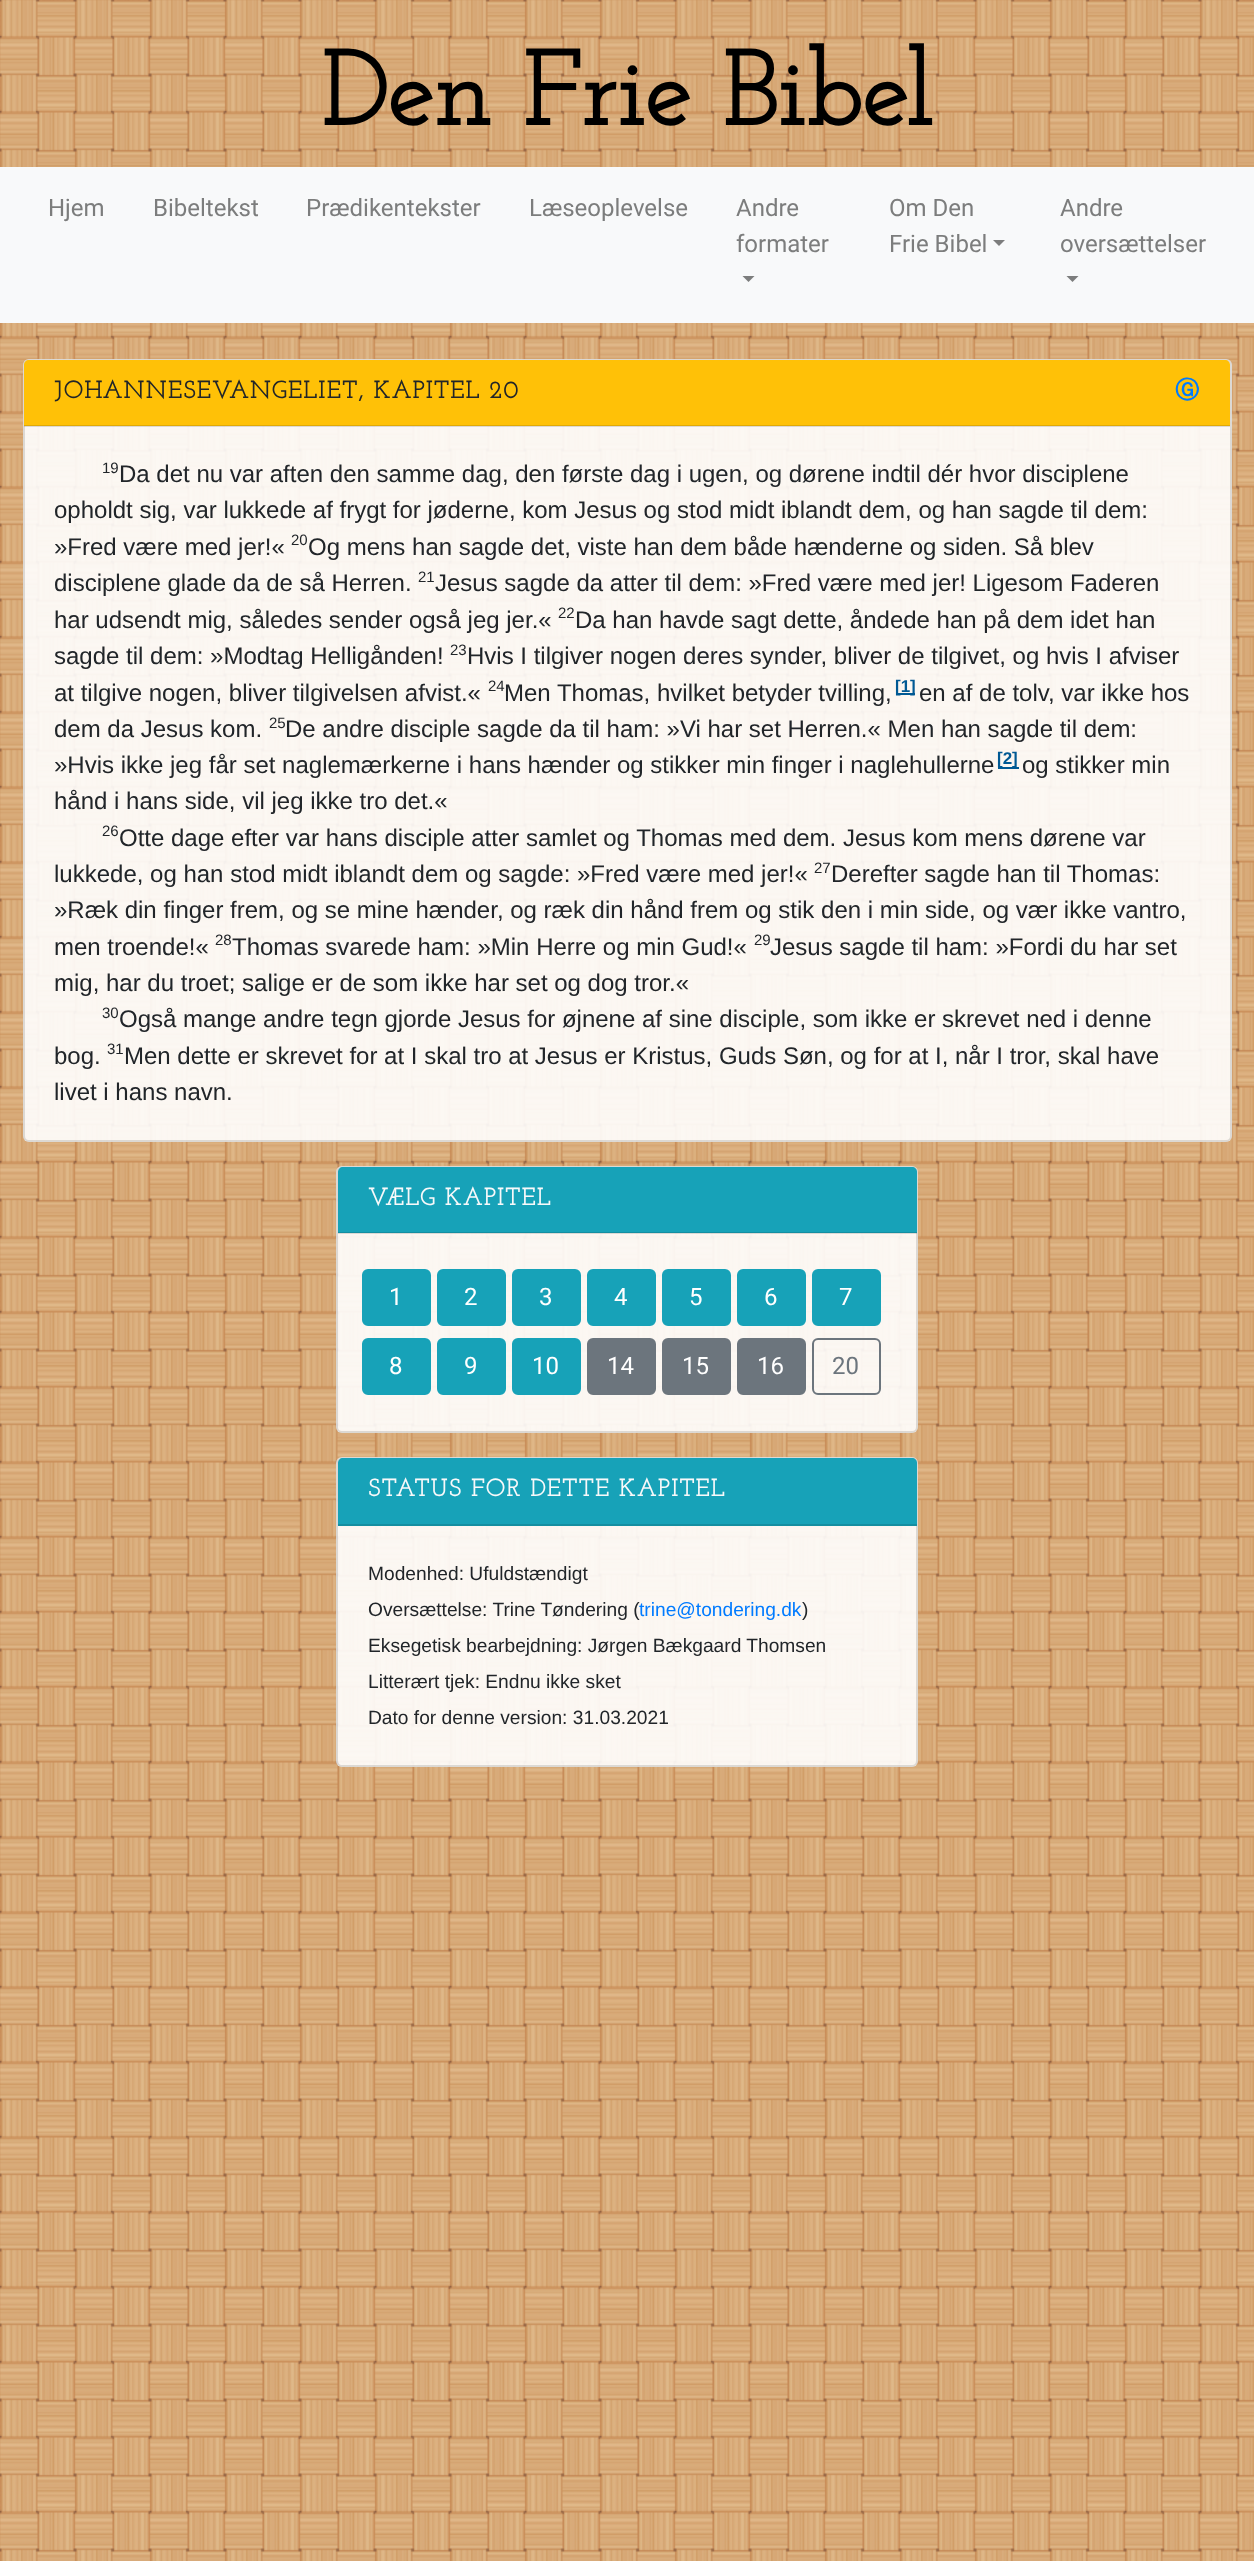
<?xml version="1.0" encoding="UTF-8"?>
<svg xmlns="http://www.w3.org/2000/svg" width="1254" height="2561">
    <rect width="100%" height="100%" fill="#FFFFFF"/>
    <image x="0" y="0" width="1254" height="2561" href="img_01.png"/>
    <text x="321" y="125" font-family="Josefin Slab" font-size="105" font-weight="700" fill="#000000">Den Frie Bibel</text>
    <rect x="0" y="167" width="1254" height="156" fill="#F8F9FA"/>
    <text x="48" y="216" font-family="Roboto" font-size="24" fill="#7C7D7D">Hjem</text>
    <text x="153" y="216" font-family="Roboto" font-size="24" fill="#7C7D7D">Bibeltekst</text>
    <text x="306" y="216" font-family="Roboto" font-size="24" fill="#7C7D7D">Prædikentekster</text>
    <text x="529" y="216" font-family="Roboto" font-size="24" fill="#7C7D7D">Læseoplevelse</text>
    <text font-family="Roboto" font-size="24" fill="#7C7D7D">
        <tspan x="736" y="216">Andre</tspan>
        <tspan x="736" y="252">formater</tspan>
    </text>
    <path d="M 742.5 276 H 754.5 L 748.5 282 Z" fill="#7C7D7D"/>
    <text font-family="Roboto" font-size="24" fill="#7C7D7D">
        <tspan x="889" y="216">Om Den</tspan>
        <tspan x="889" y="252">Frie Bibel</tspan>
    </text>
    <path d="M 993 240 H 1005 L 999 246 Z" fill="#7C7D7D"/>
    <text font-family="Roboto" font-size="24" fill="#7C7D7D">
        <tspan x="1060" y="216">Andre</tspan>
        <tspan x="1060" y="252">oversættelser</tspan>
    </text>
    <path d="M 1066.5 276 H 1078.5 L 1072.5 282 Z" fill="#7C7D7D"/>
    <rect x="23" y="359" width="1209" height="783" rx="6" fill="#FFFFFF" fill-opacity="0.9"/>
    <rect x="24" y="360" width="1207" height="781" rx="5" fill="none" stroke="#000000" stroke-opacity="0.12" stroke-width="2"/>
    <path d="M 29 360 H 1225 C 1228 360 1230 362 1230 365 V 426 H 24 V 365 C 24 362 26 360 29 360 Z" fill="#FFC107"/>
    <rect x="24" y="425" width="1206" height="2" fill="#000000" fill-opacity="0.12"/>
    <text x="54" y="398" font-family="Josefin Slab" font-size="24" font-weight="700" letter-spacing="1.5" fill="#212529">JOHANNESEVANGELIET, KAPITEL 20</text>
    <text x="1175" y="398" font-family="WenQuanYi Zen Hei" font-size="24" font-weight="700" letter-spacing="1.5" fill="#007BFF">Ⓖ</text>
    <text x="102" y="473" font-family="Liberation Sans" font-size="15" fill="#212529">19</text>
    <text x="119" y="482" font-family="Liberation Sans" font-size="24" fill="#212529">Da det nu var aften den samme dag, den første dag i ugen, og dørene indtil dér hvor disciplene</text>
    <text font-family="Liberation Sans" font-size="24" fill="#212529">
        <tspan x="54" y="518">opholdt sig, var lukkede af frygt for jøderne, kom Jesus og stod midt iblandt dem, og han sagde til dem:</tspan>
        <tspan x="54" y="555">»Fred være med jer!«</tspan>
    </text>
    <text x="291" y="545" font-family="Liberation Sans" font-size="15" fill="#212529">20</text>
    <text x="308" y="555" font-family="Liberation Sans" font-size="24" fill="#212529">Og mens han sagde det, viste han dem både hænderne og siden. Så blev</text>
    <text x="54" y="591" font-family="Liberation Sans" font-size="24" fill="#212529">disciplene glade da de så Herren.</text>
    <text x="418" y="582" font-family="Liberation Sans" font-size="15" fill="#212529">21</text>
    <text x="435" y="591" font-family="Liberation Sans" font-size="24" fill="#212529">Jesus sagde da atter til dem: »Fred være med jer! Ligesom Faderen</text>
    <text x="54" y="628" font-family="Liberation Sans" font-size="24" fill="#212529">har udsendt mig, således sender også jeg jer.«</text>
    <text x="558" y="618" font-family="Liberation Sans" font-size="15" fill="#212529">22</text>
    <text x="575" y="628" font-family="Liberation Sans" font-size="24" fill="#212529">Da han havde sagt dette, åndede han på dem idet han</text>
    <text x="54" y="664" font-family="Liberation Sans" font-size="24" fill="#212529">sagde til dem: »Modtag Helligånden!</text>
    <text x="450" y="655" font-family="Liberation Sans" font-size="15" fill="#212529">23</text>
    <text x="467" y="664" font-family="Liberation Sans" font-size="24" fill="#212529">Hvis I tilgiver nogen deres synder, bliver de tilgivet, og hvis I afviser</text>
    <text x="54" y="701" font-family="Liberation Sans" font-size="24" fill="#212529">at tilgive nogen, bliver tilgivelsen afvist.«</text>
    <text x="488" y="691" font-family="Liberation Sans" font-size="15" fill="#212529">24</text>
    <text x="504" y="701" font-family="Liberation Sans" font-size="24" fill="#212529">Men Thomas, hvilket betyder tvilling,</text>
    <rect x="896" y="693" width="19" height="2" fill="#005994"/>
    <text x="895" y="692" font-family="Liberation Sans" font-size="17" font-weight="700" fill="#005994">[1]</text>
    <text x="919" y="701" font-family="Liberation Sans" font-size="24" fill="#212529">en af de tolv, var ikke hos</text>
    <text x="54" y="737" font-family="Liberation Sans" font-size="24" fill="#212529">dem da Jesus kom.</text>
    <text x="269" y="728" font-family="Liberation Sans" font-size="15" fill="#212529">25</text>
    <text x="285" y="737" font-family="Liberation Sans" font-size="24" fill="#212529">De andre disciple sagde da til ham: »Vi har set Herren.« Men han sagde til dem:</text>
    <text x="54" y="773" font-family="Liberation Sans" font-size="24" fill="#212529">»Hvis ikke jeg får set naglemærkerne i hans hænder og stikker min finger i naglehullerne</text>
    <rect x="998" y="767" width="21" height="2" fill="#005994"/>
    <text x="997" y="764" font-family="Liberation Sans" font-size="17" font-weight="700" fill="#005994">[2]</text>
    <text x="1022" y="773" font-family="Liberation Sans" font-size="24" fill="#212529">og stikker min</text>
    <text x="54" y="809" font-family="Liberation Sans" font-size="24" fill="#212529">hånd i hans side, vil jeg ikke tro det.«</text>
    <text x="102" y="836" font-family="Liberation Sans" font-size="15" fill="#212529">26</text>
    <text x="119" y="846" font-family="Liberation Sans" font-size="24" fill="#212529">Otte dage efter var hans disciple atter samlet og Thomas med dem. Jesus kom mens dørene var</text>
    <text x="54" y="882" font-family="Liberation Sans" font-size="24" fill="#212529">lukkede, og han stod midt iblandt dem og sagde: »Fred være med jer!«</text>
    <text x="814" y="873" font-family="Liberation Sans" font-size="15" fill="#212529">27</text>
    <text x="831" y="882" font-family="Liberation Sans" font-size="24" fill="#212529">Derefter sagde han til Thomas:</text>
    <text font-family="Liberation Sans" font-size="24" fill="#212529">
        <tspan x="54" y="918">»Ræk din finger frem, og se mine hænder, og ræk din hånd frem og stik den i min side, og vær ikke vantro,</tspan>
        <tspan x="54" y="955">men troende!«</tspan>
    </text>
    <text x="215" y="945" font-family="Liberation Sans" font-size="15" fill="#212529">28</text>
    <text x="232" y="955" font-family="Liberation Sans" font-size="24" fill="#212529">Thomas svarede ham: »Min Herre og min Gud!«</text>
    <text x="754" y="945" font-family="Liberation Sans" font-size="15" fill="#212529">29</text>
    <text x="770" y="955" font-family="Liberation Sans" font-size="24" fill="#212529">Jesus sagde til ham: »Fordi du har set</text>
    <text x="54" y="991" font-family="Liberation Sans" font-size="24" fill="#212529">mig, har du troet; salige er de som ikke har set og dog tror.«</text>
    <text x="102" y="1018" font-family="Liberation Sans" font-size="15" fill="#212529">30</text>
    <text x="119" y="1027" font-family="Liberation Sans" font-size="24" fill="#212529">Også mange andre tegn gjorde Jesus for øjnene af sine disciple, som ikke er skrevet ned i denne</text>
    <text x="54" y="1064" font-family="Liberation Sans" font-size="24" fill="#212529">bog.</text>
    <text x="107" y="1054" font-family="Liberation Sans" font-size="15" fill="#212529">31</text>
    <text x="124" y="1064" font-family="Liberation Sans" font-size="24" fill="#212529">Men dette er skrevet for at I skal tro at Jesus er Kristus, Guds Søn, og for at I, når I tror, skal have</text>
    <text x="54" y="1100" font-family="Liberation Sans" font-size="24" fill="#212529">livet i hans navn.</text>
    <rect x="336" y="1166" width="582" height="267" rx="6" fill="#FFFFFF" fill-opacity="0.9"/>
    <rect x="337" y="1167" width="580" height="265" rx="5" fill="none" stroke="#000000" stroke-opacity="0.12" stroke-width="2"/>
    <path d="M 343 1167 H 912 C 915 1167 917 1169 917 1172 V 1233 H 338 V 1172 C 338 1169 340 1167 343 1167 Z" fill="#17A2B8"/>
    <rect x="338" y="1232" width="579" height="2" fill="#000000" fill-opacity="0.12"/>
    <text x="368" y="1205" font-family="Josefin Slab" font-size="24" font-weight="700" letter-spacing="1.5" fill="#F8F9FA">VÆLG KAPITEL</text>
    <rect x="363" y="1270" width="67" height="55" rx="5" fill="#17A2B8" stroke="#17A2B8" stroke-width="2"/>
    <text x="389" y="1305" font-family="Roboto" font-size="24" fill="#FFFFFF">1</text>
    <rect x="438" y="1270" width="67" height="55" rx="5" fill="#17A2B8" stroke="#17A2B8" stroke-width="2"/>
    <text x="464" y="1305" font-family="Roboto" font-size="24" fill="#FFFFFF">2</text>
    <rect x="513" y="1270" width="67" height="55" rx="5" fill="#17A2B8" stroke="#17A2B8" stroke-width="2"/>
    <text x="539" y="1305" font-family="Roboto" font-size="24" fill="#FFFFFF">3</text>
    <rect x="588" y="1270" width="67" height="55" rx="5" fill="#17A2B8" stroke="#17A2B8" stroke-width="2"/>
    <text x="614" y="1305" font-family="Roboto" font-size="24" fill="#FFFFFF">4</text>
    <rect x="663" y="1270" width="67" height="55" rx="5" fill="#17A2B8" stroke="#17A2B8" stroke-width="2"/>
    <text x="689" y="1305" font-family="Roboto" font-size="24" fill="#FFFFFF">5</text>
    <rect x="738" y="1270" width="67" height="55" rx="5" fill="#17A2B8" stroke="#17A2B8" stroke-width="2"/>
    <text x="764" y="1305" font-family="Roboto" font-size="24" fill="#FFFFFF">6</text>
    <rect x="813" y="1270" width="67" height="55" rx="5" fill="#17A2B8" stroke="#17A2B8" stroke-width="2"/>
    <text x="839" y="1305" font-family="Roboto" font-size="24" fill="#FFFFFF">7</text>
    <rect x="363" y="1339" width="67" height="55" rx="5" fill="#17A2B8" stroke="#17A2B8" stroke-width="2"/>
    <text x="389" y="1374" font-family="Roboto" font-size="24" fill="#FFFFFF">8</text>
    <rect x="438" y="1339" width="67" height="55" rx="5" fill="#17A2B8" stroke="#17A2B8" stroke-width="2"/>
    <text x="464" y="1374" font-family="Roboto" font-size="24" fill="#FFFFFF">9</text>
    <rect x="513" y="1339" width="67" height="55" rx="5" fill="#17A2B8" stroke="#17A2B8" stroke-width="2"/>
    <text x="532" y="1374" font-family="Roboto" font-size="24" fill="#FFFFFF">10</text>
    <rect x="588" y="1339" width="67" height="55" rx="5" fill="#6C757D" stroke="#6C757D" stroke-width="2"/>
    <text x="607" y="1374" font-family="Roboto" font-size="24" fill="#FFFFFF">14</text>
    <rect x="663" y="1339" width="67" height="55" rx="5" fill="#6C757D" stroke="#6C757D" stroke-width="2"/>
    <text x="682" y="1374" font-family="Roboto" font-size="24" fill="#FFFFFF">15</text>
    <rect x="738" y="1339" width="67" height="55" rx="5" fill="#6C757D" stroke="#6C757D" stroke-width="2"/>
    <text x="757" y="1374" font-family="Roboto" font-size="24" fill="#FFFFFF">16</text>
    <rect x="813" y="1339" width="67" height="55" rx="5" fill="none" stroke="#6C757D" stroke-width="2"/>
    <text x="832" y="1374" font-family="Roboto" font-size="24" fill="#6C757D">20</text>
    <rect x="336" y="1457" width="582" height="310" rx="6" fill="#FFFFFF" fill-opacity="0.9"/>
    <rect x="337" y="1458" width="580" height="308" rx="5" fill="none" stroke="#000000" stroke-opacity="0.12" stroke-width="2"/>
    <path d="M 343 1458 H 912 C 915 1458 917 1460 917 1463 V 1526 H 338 V 1463 C 338 1460 340 1458 343 1458 Z" fill="#17A2B8"/>
    <rect x="338" y="1524" width="579" height="2" fill="#148EA1"/>
    <text x="368" y="1496" font-family="Josefin Slab" font-size="24" font-weight="700" letter-spacing="1.5" fill="#F8F9FA">STATUS FOR DETTE KAPITEL</text>
    <text font-family="Liberation Sans" font-size="19.2" fill="#212529">
        <tspan x="368" y="1580">Modenhed: Ufuldstændigt</tspan>
        <tspan x="368" y="1616">Oversættelse: Trine Tøndering (</tspan>
    </text>
    <text x="639" y="1616" font-family="Liberation Sans" font-size="19.2" fill="#007BFF">trine@tondering.dk</text>
    <text x="802" y="1616" font-family="Liberation Sans" font-size="19.2" fill="#212529">)</text>
    <text font-family="Liberation Sans" font-size="19.2" fill="#212529">
        <tspan x="368" y="1652">Eksegetisk bearbejdning: Jørgen Bækgaard Thomsen</tspan>
        <tspan x="368" y="1688">Litterært tjek: Endnu ikke sket</tspan>
        <tspan x="368" y="1724">Dato for denne version: 31.03.2021</tspan>
    </text>
</svg>
